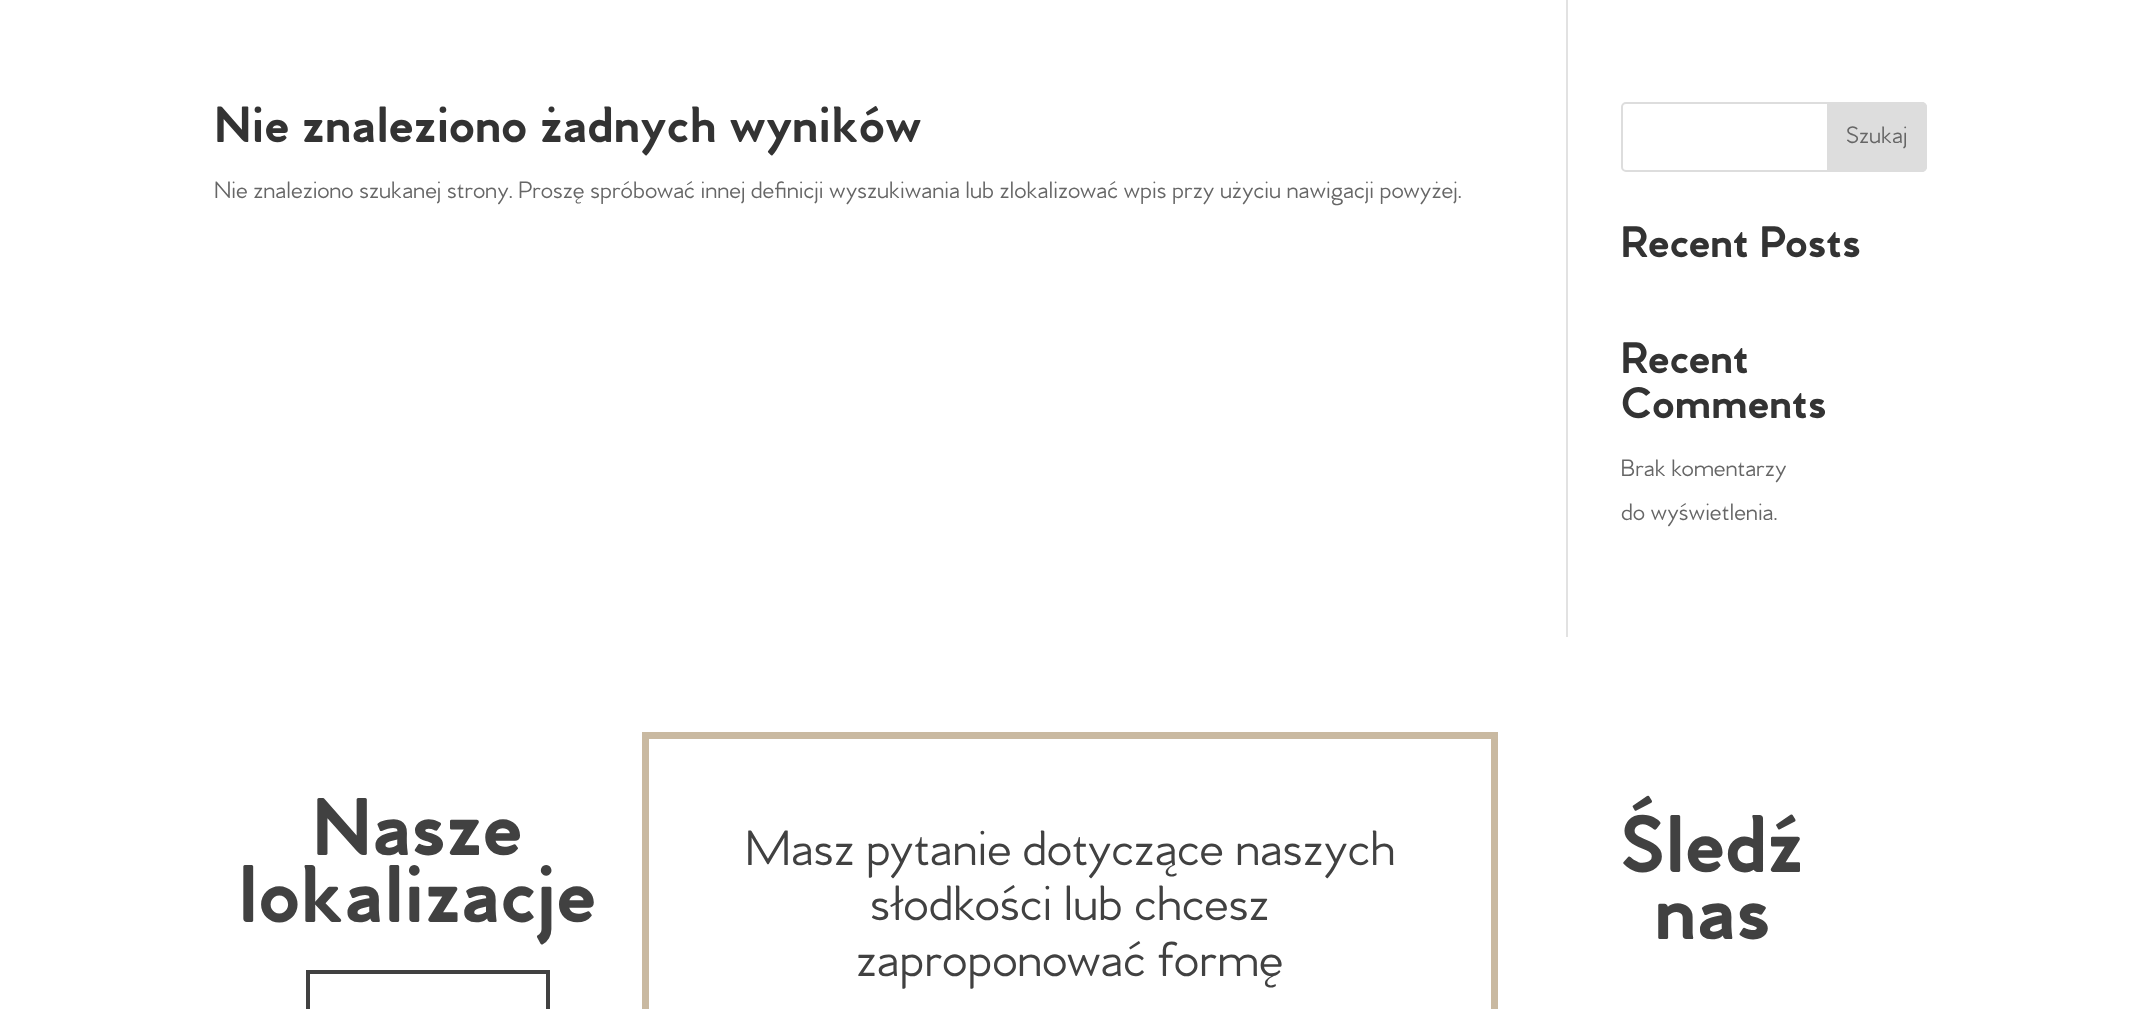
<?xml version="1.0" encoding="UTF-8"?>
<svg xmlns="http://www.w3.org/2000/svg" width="2139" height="1009">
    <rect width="100%" height="100%" fill="#FFFFFF"/>
    <rect x="1566" y="0" width="2" height="637" fill="#E2E2E2"/>
    <text x="214" y="142" font-family="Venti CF" font-size="52.5" font-weight="700" fill="#333333">Nie znaleziono żadnych wyników</text>
    <text x="214" y="198" font-family="Venti CF" font-size="24.5" font-weight="500" fill="#666666">Nie znaleziono szukanej strony. Proszę spróbować innej definicji wyszukiwania lub zlokalizować wpis przy użyciu nawigacji powyżej.</text>
    <rect x="1622" y="103" width="304" height="68" rx="4" fill="none" stroke="#DDDDDD" stroke-width="2"/>
    <path d="M 1828 103 H 1922 C 1924 103 1926 105 1926 107 V 167 C 1926 169 1924 171 1922 171 H 1828 Z" fill="#DDDDDD" stroke="#DDDDDD" stroke-width="2"/>
    <text x="1846" y="143" font-family="Venti CF" font-size="24.5" font-weight="500" fill="#666666">Szukaj</text>
    <text x="1621" y="257" font-family="Venti CF" font-size="45.5" font-weight="700" fill="#333333">Recent Posts</text>
    <text font-family="Venti CF" font-size="45.5" font-weight="700" fill="#333333">
        <tspan x="1621" y="373">Recent</tspan>
        <tspan x="1621" y="418">Comments</tspan>
    </text>
    <text font-family="Venti CF" font-size="24.5" font-weight="500" fill="#666666">
        <tspan x="1621" y="476">Brak komentarzy</tspan>
        <tspan x="1621" y="520">do wyświetlenia.</tspan>
    </text>
    <text x="312" y="855" font-family="Venti CF" font-size="84" font-weight="700" fill="#414141">Nasze</text>
    <text x="238" y="922" font-family="Venti CF" font-size="84" font-weight="700" fill="#414141">lokalizacje</text>
    <rect x="308" y="972" width="240" height="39" fill="none" stroke="#414141" stroke-width="4"/>
    <rect x="642" y="732" width="856" height="7" fill="#C9B9A1"/>
    <rect x="1491" y="732" width="7" height="277" fill="#C9B9A1"/>
    <rect x="642" y="732" width="7" height="277" fill="#C9B9A1"/>
    <text x="745" y="865" font-family="Venti CF" font-size="50.75" font-weight="500" fill="#414141">Masz pytanie dotyczące naszych</text>
    <text x="870" y="920" font-family="Venti CF" font-size="50.75" font-weight="500" fill="#414141">słodkości lub chcesz</text>
    <text x="856" y="976" font-family="Venti CF" font-size="50.75" font-weight="500" fill="#414141">zaproponować formę</text>
    <text x="1620" y="872" font-family="Venti CF" font-size="84" font-weight="700" fill="#414141">Śledź</text>
    <text x="1654" y="939" font-family="Venti CF" font-size="84" font-weight="700" fill="#414141">nas</text>
</svg>
